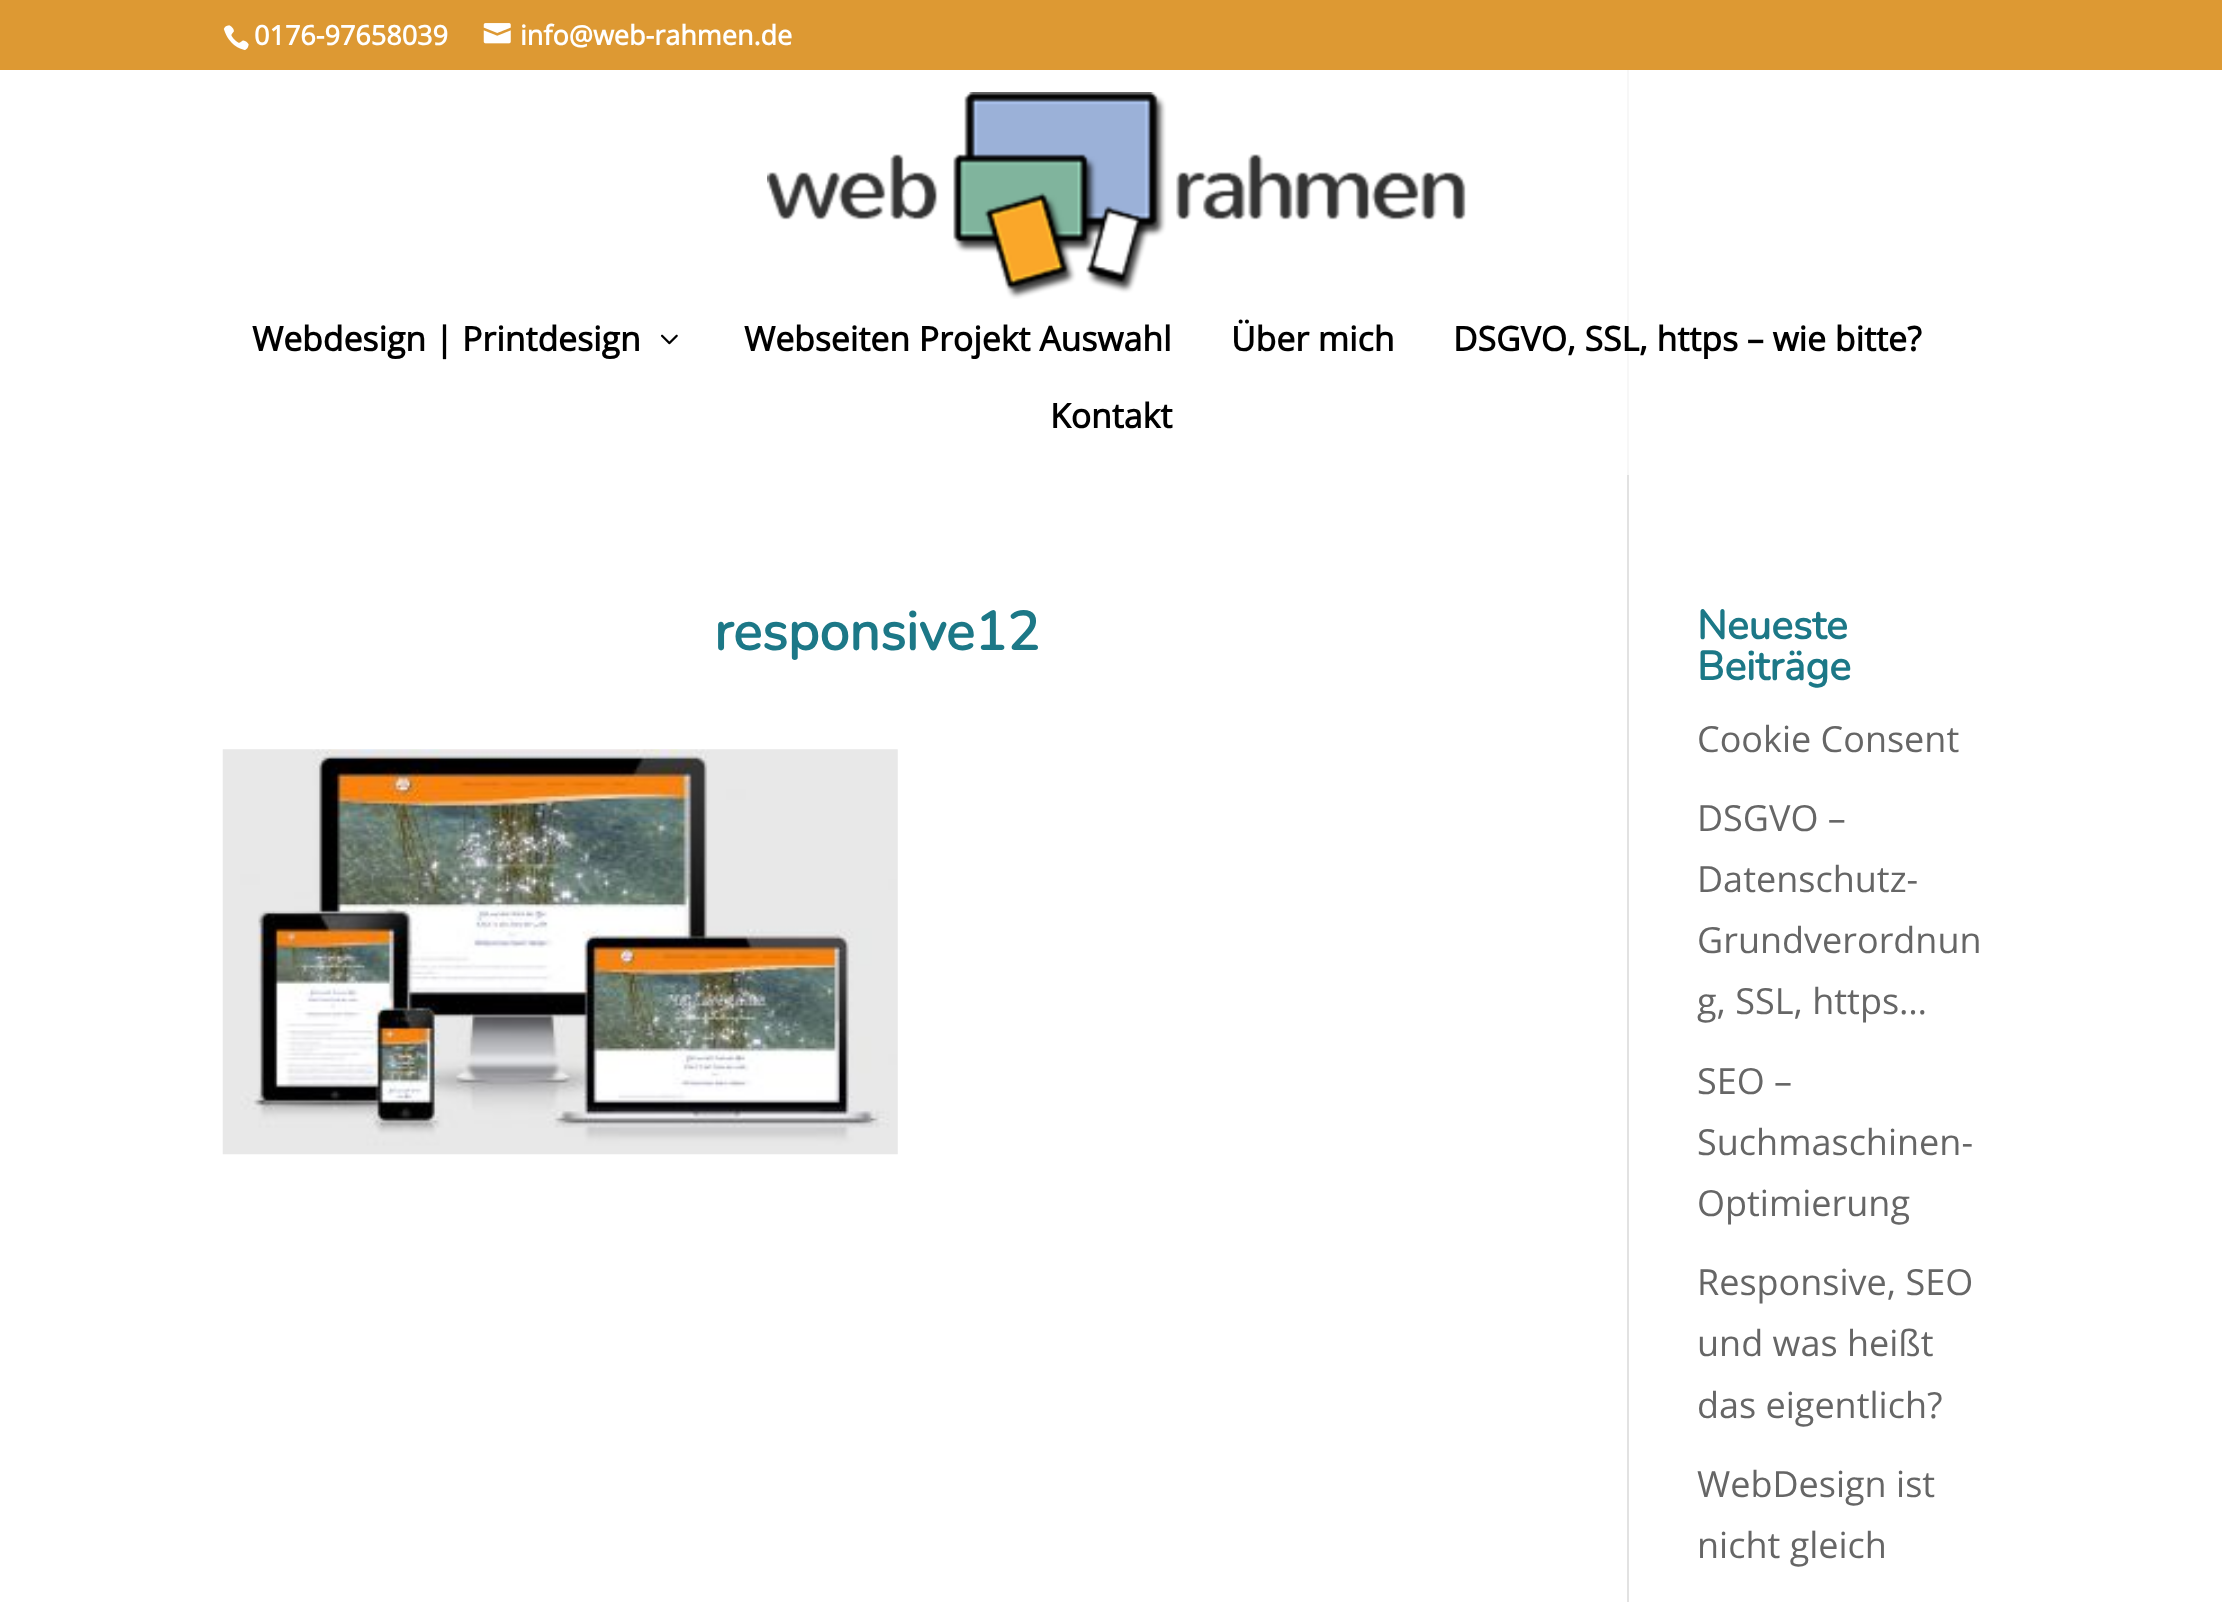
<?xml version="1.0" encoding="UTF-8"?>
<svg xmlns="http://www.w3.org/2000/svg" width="2222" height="1602">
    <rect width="100%" height="100%" fill="#FFFFFF"/>
    <rect x="0" y="0" width="2222" height="70" fill="#DD9933"/>
    <image x="223" y="25" width="26" height="26" href="img_01.png"/>
    <text x="254" y="45" font-family="Open Sans" font-size="27" font-weight="700" fill="#FFFFFF">0176-97658039</text>
    <image x="483" y="23" width="28" height="21" href="img_02.png"/>
    <text x="520" y="45" font-family="Open Sans" font-size="27" font-weight="700" fill="#FFFFFF">info@web-rahmen.de</text>
    <image x="767" y="92" width="699" height="207" href="img_03.png"/>
    <text x="252" y="351" font-family="Open Sans" font-size="33.75" font-weight="700" fill="#000000">Webdesign | Printdesign</text>
    <image x="661" y="334" width="17" height="11" href="img_04.png"/>
    <text x="744" y="351" font-family="Open Sans" font-size="33.75" font-weight="700" fill="#000000">Webseiten Projekt Auswahl</text>
    <text x="1231" y="351" font-family="Open Sans" font-size="33.75" font-weight="700" fill="#000000">Über mich</text>
    <rect x="1627" y="70" width="2" height="405" fill="#F7F7F7"/>
    <text x="1453" y="351" font-family="Open Sans" font-size="33.75" font-weight="700" fill="#000000">DSGVO, SSL, https – wie bitte?</text>
    <text x="1050" y="428" font-family="Open Sans" font-size="33.75" font-weight="700" fill="#000000">Kontakt</text>
    <rect x="1627" y="475" width="2" height="1127" fill="#E2E2E2"/>
    <text x="714" y="650" font-family="Nunito" font-size="54" font-weight="700" fill="#1C7887">responsive12</text>
    <image x="222" y="749" width="676" height="406" href="img_05.png"/>
    <text font-family="Nunito" font-size="40.5" font-weight="700" fill="#1C7887">
        <tspan x="1697" y="639">Neueste</tspan>
        <tspan x="1697" y="680">Beiträge</tspan>
    </text>
    <text x="1697" y="752" font-family="Open Sans" font-size="36" fill="#666666">Cookie Consent</text>
    <text font-family="Open Sans" font-size="36" fill="#666666">
        <tspan x="1697" y="831">DSGVO –</tspan>
        <tspan x="1697" y="892">Datenschutz-</tspan>
        <tspan x="1697" y="953">Grundverordnun</tspan>
        <tspan x="1697" y="1014">g, SSL, https…</tspan>
    </text>
    <text font-family="Open Sans" font-size="36" fill="#666666">
        <tspan x="1697" y="1094">SEO –</tspan>
        <tspan x="1697" y="1155">Suchmaschinen-</tspan>
        <tspan x="1697" y="1216">Optimierung</tspan>
    </text>
    <text font-family="Open Sans" font-size="36" fill="#666666">
        <tspan x="1697" y="1295">Responsive, SEO</tspan>
        <tspan x="1697" y="1356">und was heißt</tspan>
        <tspan x="1697" y="1418">das eigentlich?</tspan>
    </text>
    <text font-family="Open Sans" font-size="36" fill="#666666">
        <tspan x="1697" y="1497">WebDesign ist</tspan>
        <tspan x="1697" y="1558">nicht gleich</tspan>
    </text>
</svg>
